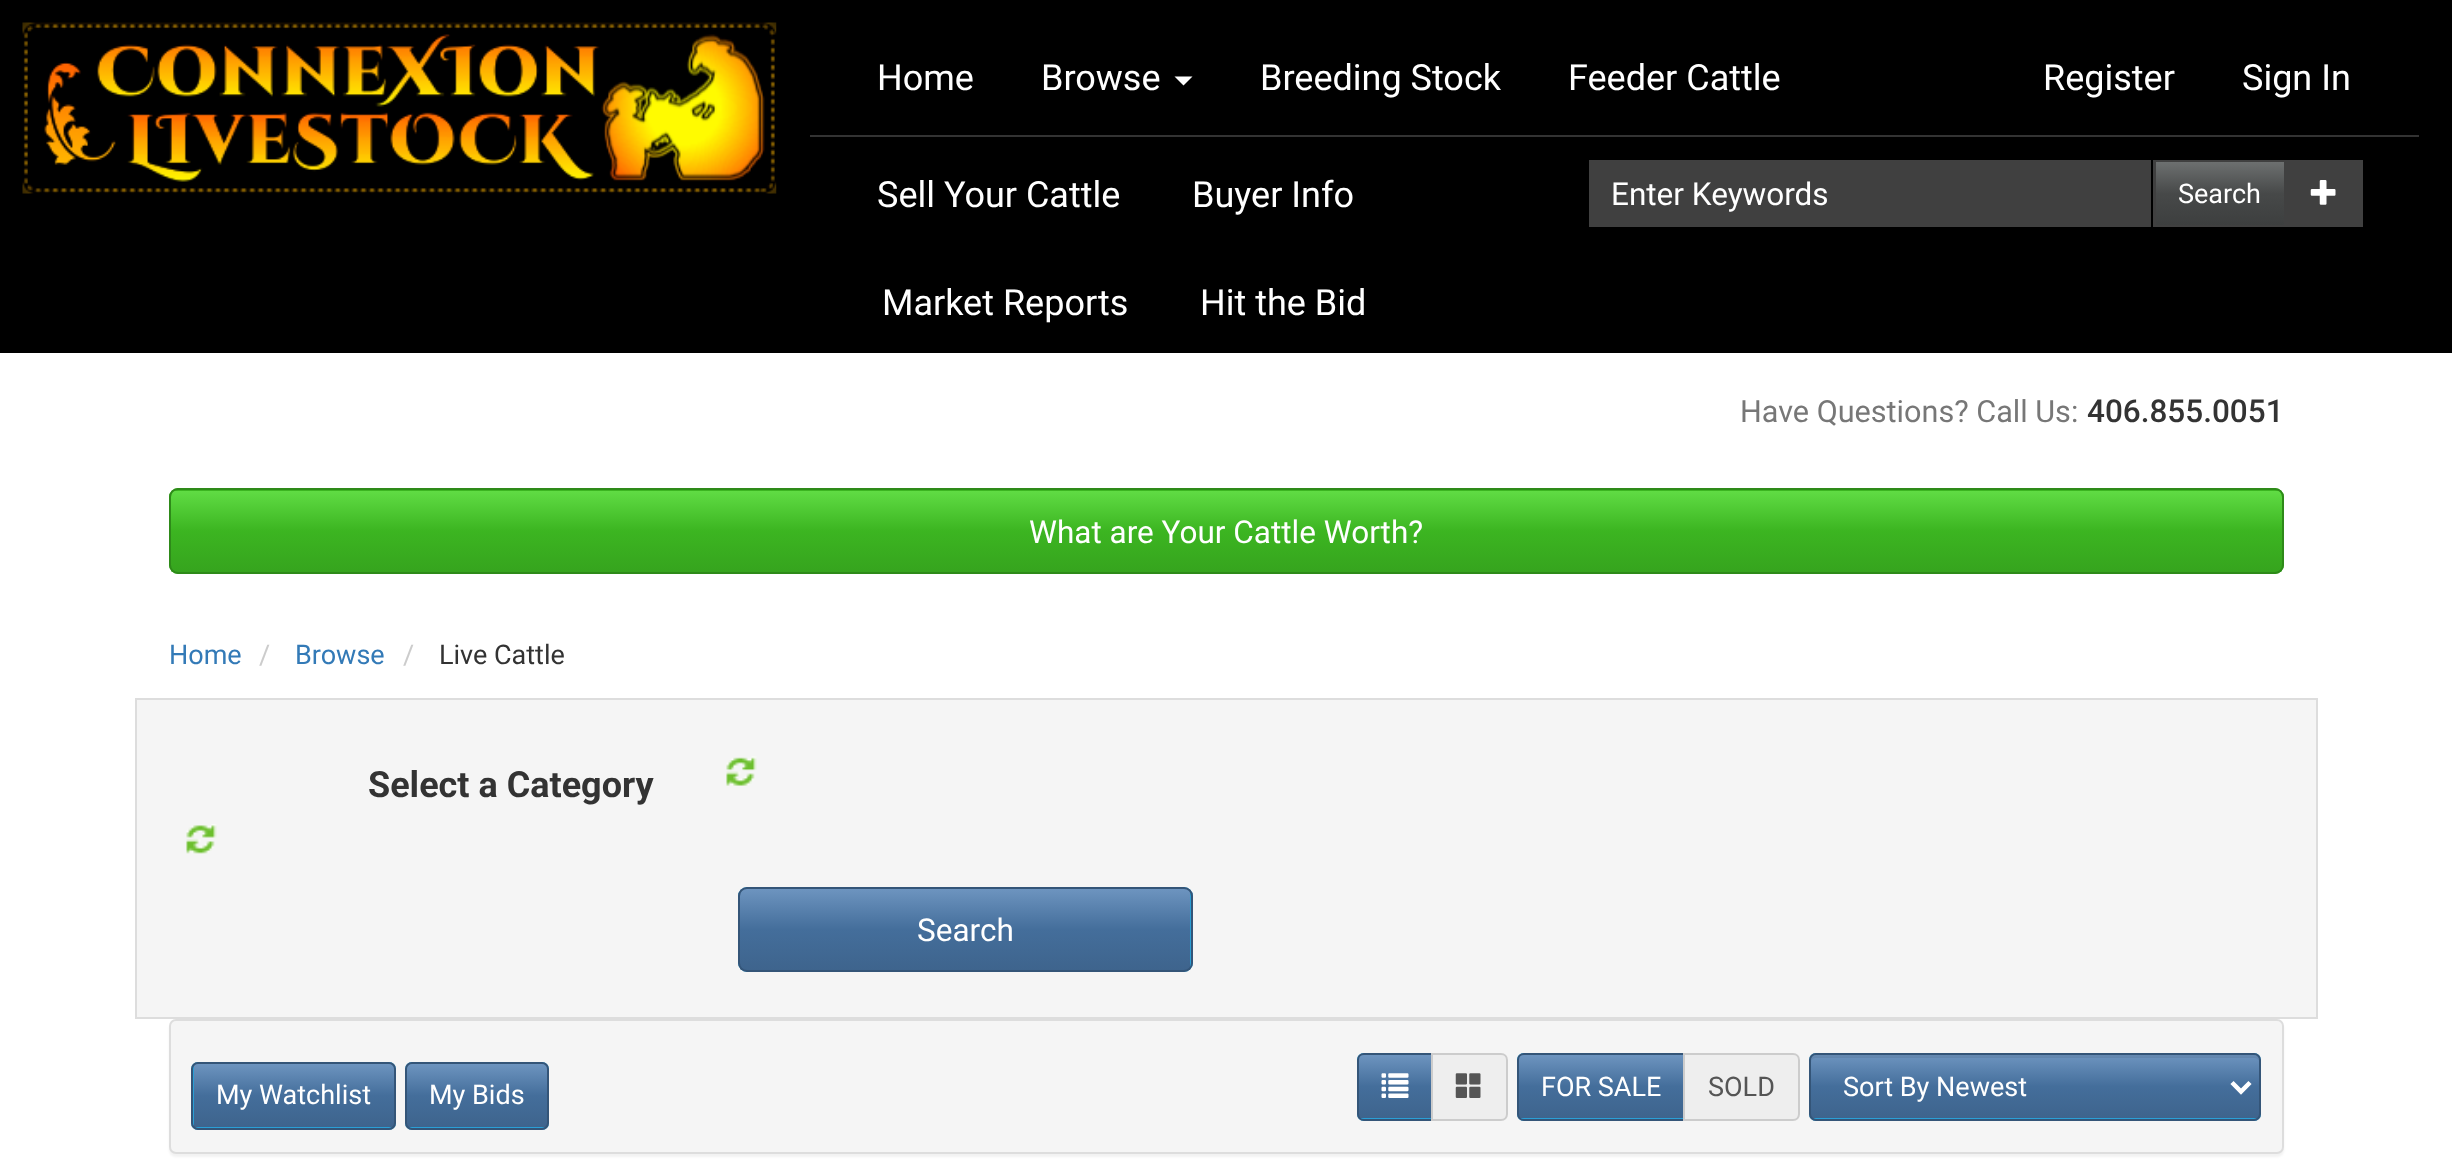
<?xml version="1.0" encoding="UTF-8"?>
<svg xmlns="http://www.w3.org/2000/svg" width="2452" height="1162">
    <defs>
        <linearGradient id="g1" gradientUnits="userSpaceOnUse" x1="2220" y1="162" x2="2220" y2="225"><stop offset="0" stop-color="#6D7070"/><stop offset="0.5" stop-color="#474949"/><stop offset="1" stop-color="#3D3F3F"/></linearGradient>
        <clipPath id="clip1"><rect x="169" y="488" width="2115" height="86" rx="9"/></clipPath>
        <linearGradient id="g2" gradientUnits="userSpaceOnUse" x1="1226" y1="490" x2="1226" y2="572"><stop offset="0" stop-color="#61DD45"/><stop offset="0.5" stop-color="#3CB521"/><stop offset="1" stop-color="#36A41E"/></linearGradient>
        <filter id="blur1" x="-50%" y="-200%" width="200%" height="500%"><feGaussianBlur stdDeviation="1"/></filter>
        <clipPath id="clip2"><rect x="738" y="887" width="455" height="85" rx="9"/></clipPath>
        <linearGradient id="g3" gradientUnits="userSpaceOnUse" x1="965" y1="889" x2="965" y2="970"><stop offset="0" stop-color="#6D94BF"/><stop offset="0.5" stop-color="#446E9B"/><stop offset="1" stop-color="#3E648D"/></linearGradient>
        <linearGradient id="g4" gradientUnits="userSpaceOnUse" x1="294" y1="1064" x2="294" y2="1127"><stop offset="0" stop-color="#6D94BF"/><stop offset="0.5" stop-color="#446E9B"/><stop offset="1" stop-color="#3E648D"/></linearGradient>
        <linearGradient id="g5" gradientUnits="userSpaceOnUse" x1="477" y1="1064" x2="477" y2="1127"><stop offset="0" stop-color="#6D94BF"/><stop offset="0.5" stop-color="#446E9B"/><stop offset="1" stop-color="#3E648D"/></linearGradient>
        <linearGradient id="g6" gradientUnits="userSpaceOnUse" x1="1395" y1="1055" x2="1395" y2="1118"><stop offset="0" stop-color="#6D94BF"/><stop offset="0.5" stop-color="#446E9B"/><stop offset="1" stop-color="#3E648D"/></linearGradient>
        <linearGradient id="g7" gradientUnits="userSpaceOnUse" x1="1601" y1="1055" x2="1601" y2="1118"><stop offset="0" stop-color="#6D94BF"/><stop offset="0.5" stop-color="#446E9B"/><stop offset="1" stop-color="#3E648D"/></linearGradient>
        <linearGradient id="g8" gradientUnits="userSpaceOnUse" x1="2035" y1="1055" x2="2035" y2="1118"><stop offset="0" stop-color="#6D94BF"/><stop offset="0.5" stop-color="#446E9B"/><stop offset="1" stop-color="#3E648D"/></linearGradient>
    </defs>
    <rect width="100%" height="100%" fill="#FFFFFF"/>
    <rect x="0" y="0" width="2452" height="353" fill="#000000"/>
    <image x="22" y="22" width="755" height="172" href="img_01.png"/>
    <rect x="810" y="135" width="1609" height="2" fill="#333333"/>
    <text x="877" y="90" font-family="Roboto" font-size="36" fill="#FFFFFF">Home</text>
    <text x="1041" y="90" font-family="Roboto" font-size="36" fill="#FFFFFF">Browse</text>
    <path d="M 1174.5 76.5 H 1192.5 L 1183.5 85.5 Z" fill="#FFFFFF"/>
    <text x="1260" y="90" font-family="Roboto" font-size="36" fill="#FFFFFF">Breeding Stock</text>
    <text x="1568" y="90" font-family="Roboto" font-size="36" fill="#FFFFFF">Feeder Cattle</text>
    <text x="2043" y="90" font-family="Roboto" font-size="36" fill="#FFFFFF">Register</text>
    <text x="2242" y="90" font-family="Roboto" font-size="36" fill="#FFFFFF">Sign In</text>
    <text x="877" y="207" font-family="Roboto" font-size="36" fill="#FFFFFF">Sell Your Cattle</text>
    <text x="1192" y="207" font-family="Roboto" font-size="36" fill="#FFFFFF">Buyer Info</text>
    <text x="882" y="315" font-family="Roboto" font-size="36" fill="#FFFFFF">Market Reports</text>
    <text x="1200" y="315" font-family="Roboto" font-size="36" fill="#FFFFFF">Hit the Bid</text>
    <rect x="2153" y="160" width="210" height="67" fill="#404040"/>
    <image x="2310" y="180" width="26" height="25" href="img_02.png"/>
    <rect x="1589" y="160" width="562" height="67" fill="#404040"/>
    <text x="1611" y="205" font-family="Roboto" font-size="31.5" fill="#FFFFFF">Enter Keywords</text>
    <rect x="2156" y="162" width="128" height="63" fill="url(#g1)"/>
    <text x="2178" y="203" font-family="Roboto" font-size="27" fill="#FFFFFF">Search</text>
    <text x="1740" y="422" font-family="Roboto" font-size="30.6" fill="#777777">Have Questions? Call Us:</text>
    <text x="2087" y="422" font-family="Roboto" font-size="31.5" font-weight="500" fill="#333333">406.855.0051</text>
    <rect x="169" y="488" width="2115" height="86" rx="9" fill="#3CB521"/>
    <g clip-path="url(#clip1)">
        <rect x="171" y="491" width="2111" height="81" fill="url(#g2)"/>
    </g>
    <rect x="170" y="489" width="2113" height="84" rx="8" fill="none" stroke="#2E8A19" stroke-width="2"/>
    <text x="1029" y="543" font-family="Roboto" font-size="31.5" fill="#FFFFFF">What are Your Cattle Worth?</text>
    <text x="169" y="664" font-family="Roboto" font-size="27" fill="#337AB7">Home</text>
    <text x="259" y="664" font-family="Roboto" font-size="27" fill="#CCCCCC">/</text>
    <text x="295" y="664" font-family="Roboto" font-size="27" fill="#337AB7">Browse</text>
    <text x="403" y="664" font-family="Roboto" font-size="27" fill="#CCCCCC">/</text>
    <text x="439" y="664" font-family="Roboto" font-size="27" fill="#333333">Live Cattle</text>
    <rect x="169" y="1022" width="2115" height="135" rx="7" fill="#000000" fill-opacity="0.05" filter="url(#blur1)"/>
    <rect x="136" y="699" width="2181" height="319" fill="#F5F5F5" stroke="#DDDDDD" stroke-width="2"/>
    <text x="368" y="797" font-family="Roboto" font-size="36" font-weight="700" fill="#333333">Select a Category</text>
    <image x="726" y="756" width="31" height="30" href="img_03.png"/>
    <image x="186" y="824" width="31" height="30" href="img_04.png"/>
    <rect x="738" y="887" width="455" height="85" rx="9" fill="#2A9FD6"/>
    <g clip-path="url(#clip2)">
        <rect x="740" y="889" width="450" height="81" fill="url(#g3)"/>
    </g>
    <rect x="739" y="888" width="453" height="83" rx="8" fill="none" stroke="#345578" stroke-width="2"/>
    <text x="917" y="941" font-family="Roboto" font-size="31.5" fill="#FFFFFF">Search</text>
    <rect x="170" y="1020" width="2113" height="133" rx="6" fill="#F5F5F5" stroke="#DDDDDD" stroke-width="2"/>
    <rect x="191" y="1062" width="205" height="68" rx="7" fill="#2A9FD6"/>
    <rect x="194" y="1064" width="200" height="63" fill="url(#g4)"/>
    <rect x="192" y="1063" width="203" height="66" rx="6" fill="none" stroke="#345578" stroke-width="2"/>
    <text x="216" y="1104" font-family="Roboto" font-size="27" fill="#FFFFFF">My Watchlist</text>
    <rect x="405" y="1062" width="144" height="68" rx="7" fill="#2A9FD6"/>
    <rect x="407" y="1064" width="140" height="63" fill="url(#g5)"/>
    <rect x="406" y="1063" width="142" height="66" rx="6" fill="none" stroke="#345578" stroke-width="2"/>
    <text x="429" y="1104" font-family="Roboto" font-size="27" fill="#FFFFFF">My Bids</text>
    <path d="M 1364 1053 H 1433 V 1121 H 1364 C 1360 1121 1357 1118 1357 1114 V 1060 C 1357 1056 1360 1053 1364 1053 Z" fill="#2A9FD6"/>
    <rect x="1359" y="1055" width="72" height="63" fill="url(#g6)"/>
    <path d="M 1364 1054 H 1432 V 1120 H 1364 C 1360.5 1120 1358 1117.5 1358 1114 V 1060 C 1358 1056.5 1360.5 1054 1364 1054 Z" fill="none" stroke="#345578" stroke-width="2"/>
    <image x="1381" y="1073" width="28" height="25" href="img_05.png"/>
    <path d="M 1432 1054 H 1501 C 1504.5 1054 1507 1056.5 1507 1060 V 1114 C 1507 1117.5 1504.5 1120 1501 1120 H 1432 Z" fill="#EEEEEE" stroke="#CCCCCC" stroke-width="2"/>
    <image x="1455" y="1073" width="26" height="25" href="img_06.png"/>
    <path d="M 1524 1053 H 1685 V 1121 H 1524 C 1520 1121 1517 1118 1517 1114 V 1060 C 1517 1056 1520 1053 1524 1053 Z" fill="#2A9FD6"/>
    <rect x="1519" y="1055" width="164" height="63" fill="url(#g7)"/>
    <path d="M 1524 1054 H 1684 V 1120 H 1524 C 1520.5 1120 1518 1117.5 1518 1114 V 1060 C 1518 1056.5 1520.5 1054 1524 1054 Z" fill="none" stroke="#345578" stroke-width="2"/>
    <text x="1541" y="1096" font-family="Roboto" font-size="27" fill="#FFFFFF">FOR SALE</text>
    <path d="M 1684 1054 H 1793 C 1796.5 1054 1799 1056.5 1799 1060 V 1114 C 1799 1117.5 1796.5 1120 1793 1120 H 1684 Z" fill="#EEEEEE" stroke="#CCCCCC" stroke-width="2"/>
    <text x="1708" y="1096" font-family="Roboto" font-size="27" fill="#555555">SOLD</text>
    <rect x="1809" y="1053" width="452" height="68" rx="7" fill="#2A9FD6"/>
    <rect x="1811" y="1055" width="448" height="63" fill="url(#g8)"/>
    <path d="M 1816 1058 H 2254 C 2257 1058 2259 1060 2259 1062 C 2259 1059 2258 1055 2254 1055 H 1816 C 1812 1055 1811 1059 1811 1062 C 1811 1060 1813 1058 1816 1058 Z" fill="#000000" fill-opacity="0.07"/>
    <rect x="1810" y="1054" width="450" height="66" rx="6" fill="none" stroke="#345578" stroke-width="2"/>
    <path d="M 2232 1082.5 L 2241 1091.5 L 2250 1082.5" fill="none" stroke="#FFFFFF" stroke-width="4.5"/>
    <text x="1843" y="1096" font-family="Roboto" font-size="27" fill="#FFFFFF">Sort By Newest</text>
</svg>
